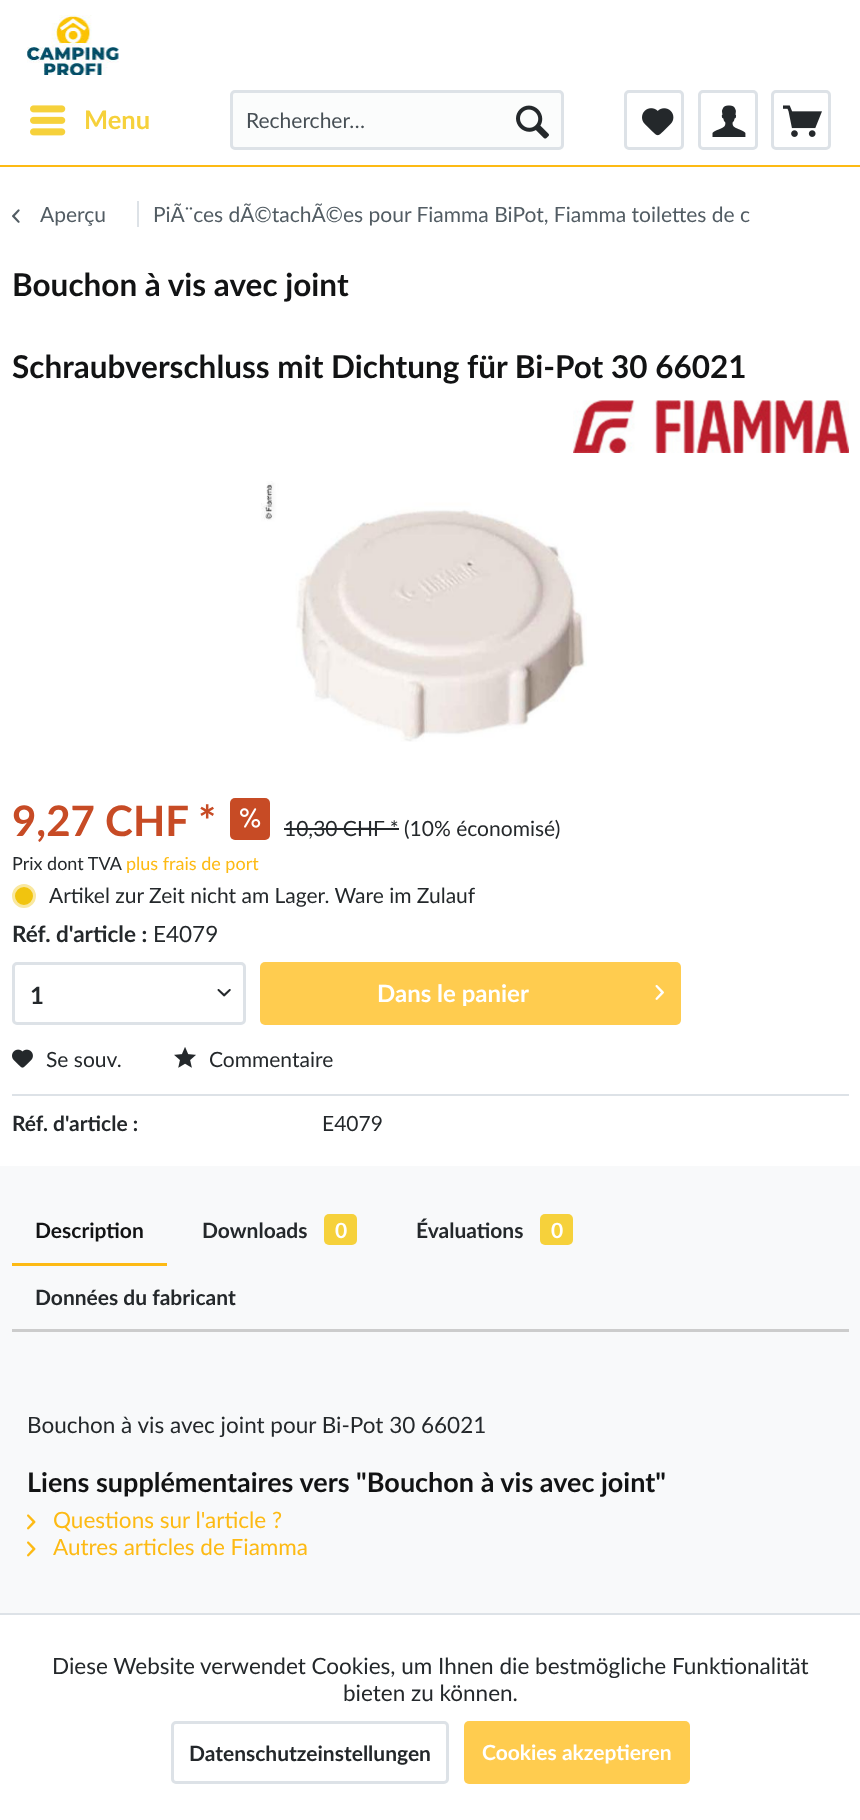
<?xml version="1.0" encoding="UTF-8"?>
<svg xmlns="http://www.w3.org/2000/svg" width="860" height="1820">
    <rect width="100%" height="100%" fill="#FFFFFF"/>
    <rect x="0" y="165" width="860" height="2" fill="#FDBA14"/>
    <image x="27" y="15" width="92" height="60" href="img_01.png"/>
    <image x="30" y="105" width="36" height="31" href="img_02.png"/>
    <text x="84" y="129" font-family="Lato" font-size="25.5" font-weight="700" fill="#F6D13B">Menu</text>
    <rect x="231.5" y="91.5" width="331" height="57" rx="3.5" fill="#FBFCFC" stroke="#DDE2E7" stroke-width="3"/>
    <text x="246" y="128" font-family="Lato" font-size="21" fill="#474F55">Rechercher…</text>
    <image x="516" y="105" width="33" height="34" href="img_03.png"/>
    <rect x="625.5" y="91.5" width="57" height="57" rx="3.5" fill="none" stroke="#DDE2E7" stroke-width="3"/>
    <image x="642" y="108" width="32" height="28" href="img_04.png"/>
    <rect x="699.5" y="91.5" width="57" height="57" rx="3.5" fill="none" stroke="#DDE2E7" stroke-width="3"/>
    <image x="712" y="105" width="34" height="32" href="img_05.png"/>
    <rect x="772.5" y="91.5" width="57" height="57" rx="3.5" fill="none" stroke="#DDE2E7" stroke-width="3"/>
    <image x="783" y="105" width="39" height="32" href="img_06.png"/>
    <image x="12" y="209" width="8" height="14" href="img_07.png"/>
    <text x="40" y="222" font-family="Lato" font-size="21" fill="#525C63">Aperçu</text>
    <rect x="137" y="201" width="2" height="26" fill="#DDE2E7"/>
    <text x="153" y="222" font-family="Lato" font-size="21" fill="#525C63">PiÃ¨ces dÃ©tachÃ©es pour Fiamma BiPot, Fiamma toilettes de c</text>
    <text x="12" y="296" font-family="Lato" font-size="31.5" font-weight="700" fill="#121314">Bouchon à vis avec joint</text>
    <text x="12" y="378" font-family="Lato" font-size="31.5" font-weight="700" fill="#121314">Schraubverschluss mit Dichtung für Bi-Pot 30 66021</text>
    <image x="573" y="400" width="276" height="53" href="img_08.png"/>
    <image x="261" y="481" width="326" height="261" href="img_09.png"/>
    <text x="12" y="836" font-family="Lato" font-size="42" font-weight="700" fill="#C74B25">9,27 CHF *</text>
    <rect x="230" y="798" width="40" height="42" rx="5" fill="#C74B25"/>
    <image x="240" y="808" width="21" height="20" href="img_10.png"/>
    <text x="284" y="836" font-family="Lato" font-size="21" fill="#24282B">10,30 CHF * (10% économisé)</text>
    <rect x="284" y="828" width="115" height="2" fill="#24282B"/>
    <text x="12" y="870" font-family="Lato" font-size="18" fill="#24282B">Prix dont TVA</text>
    <text x="126" y="870" font-family="Lato" font-size="18" fill="#FDBA14">plus frais de port</text>
    <circle cx="24" cy="896" r="10.5" fill="#F1C40F" stroke="#F9E8A0" stroke-width="3"/>
    <text x="49" y="903" font-family="Lato" font-size="21" fill="#24282B">Artikel zur Zeit nicht am Lager. Ware im Zulauf</text>
    <text x="12" y="942" font-family="Lato" font-size="22.5" font-weight="700" fill="#24282B">Réf. d'article :</text>
    <text x="153" y="942" font-family="Lato" font-size="22.5" fill="#24282B">E4079</text>
    <rect x="13.5" y="963.5" width="231" height="60" rx="3.5" fill="none" stroke="#DDE2E7" stroke-width="3"/>
    <text x="30" y="1004" font-family="Lato" font-size="24" font-weight="700" fill="#24282B">1</text>
    <image x="217" y="989" width="14" height="8" href="img_11.png"/>
    <rect x="260" y="962" width="421" height="63" rx="5" fill="#FFCC4F"/>
    <text x="377" y="1002" font-family="Lato" font-size="24" font-weight="700" fill="#FFFFFF">Dans le panier</text>
    <image x="655" y="985" width="9" height="15" href="img_12.png"/>
    <rect x="12" y="1094" width="837" height="2" fill="#DDE2E7"/>
    <image x="12" y="1049" width="21" height="19" href="img_13.png"/>
    <text x="46" y="1067" font-family="Lato" font-size="21" fill="#24282B">Se souv.</text>
    <image x="174" y="1047" width="22" height="21" href="img_14.png"/>
    <text x="209" y="1067" font-family="Lato" font-size="21" fill="#24282B">Commentaire</text>
    <text x="12" y="1131" font-family="Lato" font-size="21" font-weight="700" fill="#24282B">Réf. d'article :</text>
    <text x="322" y="1131" font-family="Lato" font-size="21" fill="#24282B">E4079</text>
    <rect x="0" y="1166" width="860" height="447" fill="#F8F9FA"/>
    <rect x="12" y="1329" width="837" height="3" fill="#CCCCCC"/>
    <rect x="12" y="1263" width="155" height="3" fill="#FDBA14"/>
    <text x="35" y="1238" font-family="Lato" font-size="21" font-weight="700" fill="#121314">Description</text>
    <text x="202" y="1238" font-family="Lato" font-size="21" font-weight="700" fill="#24282B">Downloads</text>
    <rect x="324" y="1214" width="33" height="31" rx="5" fill="#F6D13B"/>
    <text x="335" y="1238" font-family="Lato" font-size="21" font-weight="700" fill="#FFFFFF">0</text>
    <text x="416" y="1238" font-family="Lato" font-size="21" font-weight="700" fill="#24282B">Évaluations</text>
    <rect x="540" y="1214" width="33" height="31" rx="5" fill="#F6D13B"/>
    <text x="551" y="1238" font-family="Lato" font-size="21" font-weight="700" fill="#FFFFFF">0</text>
    <text x="35" y="1305" font-family="Lato" font-size="21" font-weight="700" fill="#24282B">Données du fabricant</text>
    <text x="27" y="1433" font-family="Lato" font-size="22.5" fill="#24282B">Bouchon à vis avec joint pour Bi-Pot 30 66021</text>
    <text x="27" y="1492" font-family="Lato" font-size="27" font-weight="700" fill="#121314">Liens supplémentaires vers "Bouchon à vis avec joint"</text>
    <image x="27" y="1514" width="9" height="16" href="img_15.png"/>
    <text x="53" y="1528" font-family="Lato" font-size="22.5" fill="#FDBA14">Questions sur l'article ?</text>
    <image x="27" y="1541" width="9" height="16" href="img_15.png"/>
    <text x="53" y="1555" font-family="Lato" font-size="22.5" fill="#FDBA14">Autres articles de Fiamma</text>
    <rect x="0" y="1613" width="860" height="2" fill="#DDE2E7"/>
    <text x="52" y="1674" font-family="Lato" font-size="22.5" fill="#24282B">Diese Website verwendet Cookies, um Ihnen die bestmögliche Funktionalität</text>
    <text x="343" y="1701" font-family="Lato" font-size="22.5" fill="#24282B">bieten zu können.</text>
    <rect x="172.5" y="1722.5" width="275" height="60" rx="3.5" fill="none" stroke="#DDE2E7" stroke-width="3"/>
    <text x="189" y="1761" font-family="Lato" font-size="21" font-weight="700" fill="#24282B">Datenschutzeinstellungen</text>
    <rect x="464" y="1721" width="226" height="63" rx="5" fill="#FFCC4F"/>
    <text x="482" y="1760" font-family="Lato" font-size="21" font-weight="700" fill="#FFFFFF">Cookies akzeptieren</text>
</svg>
